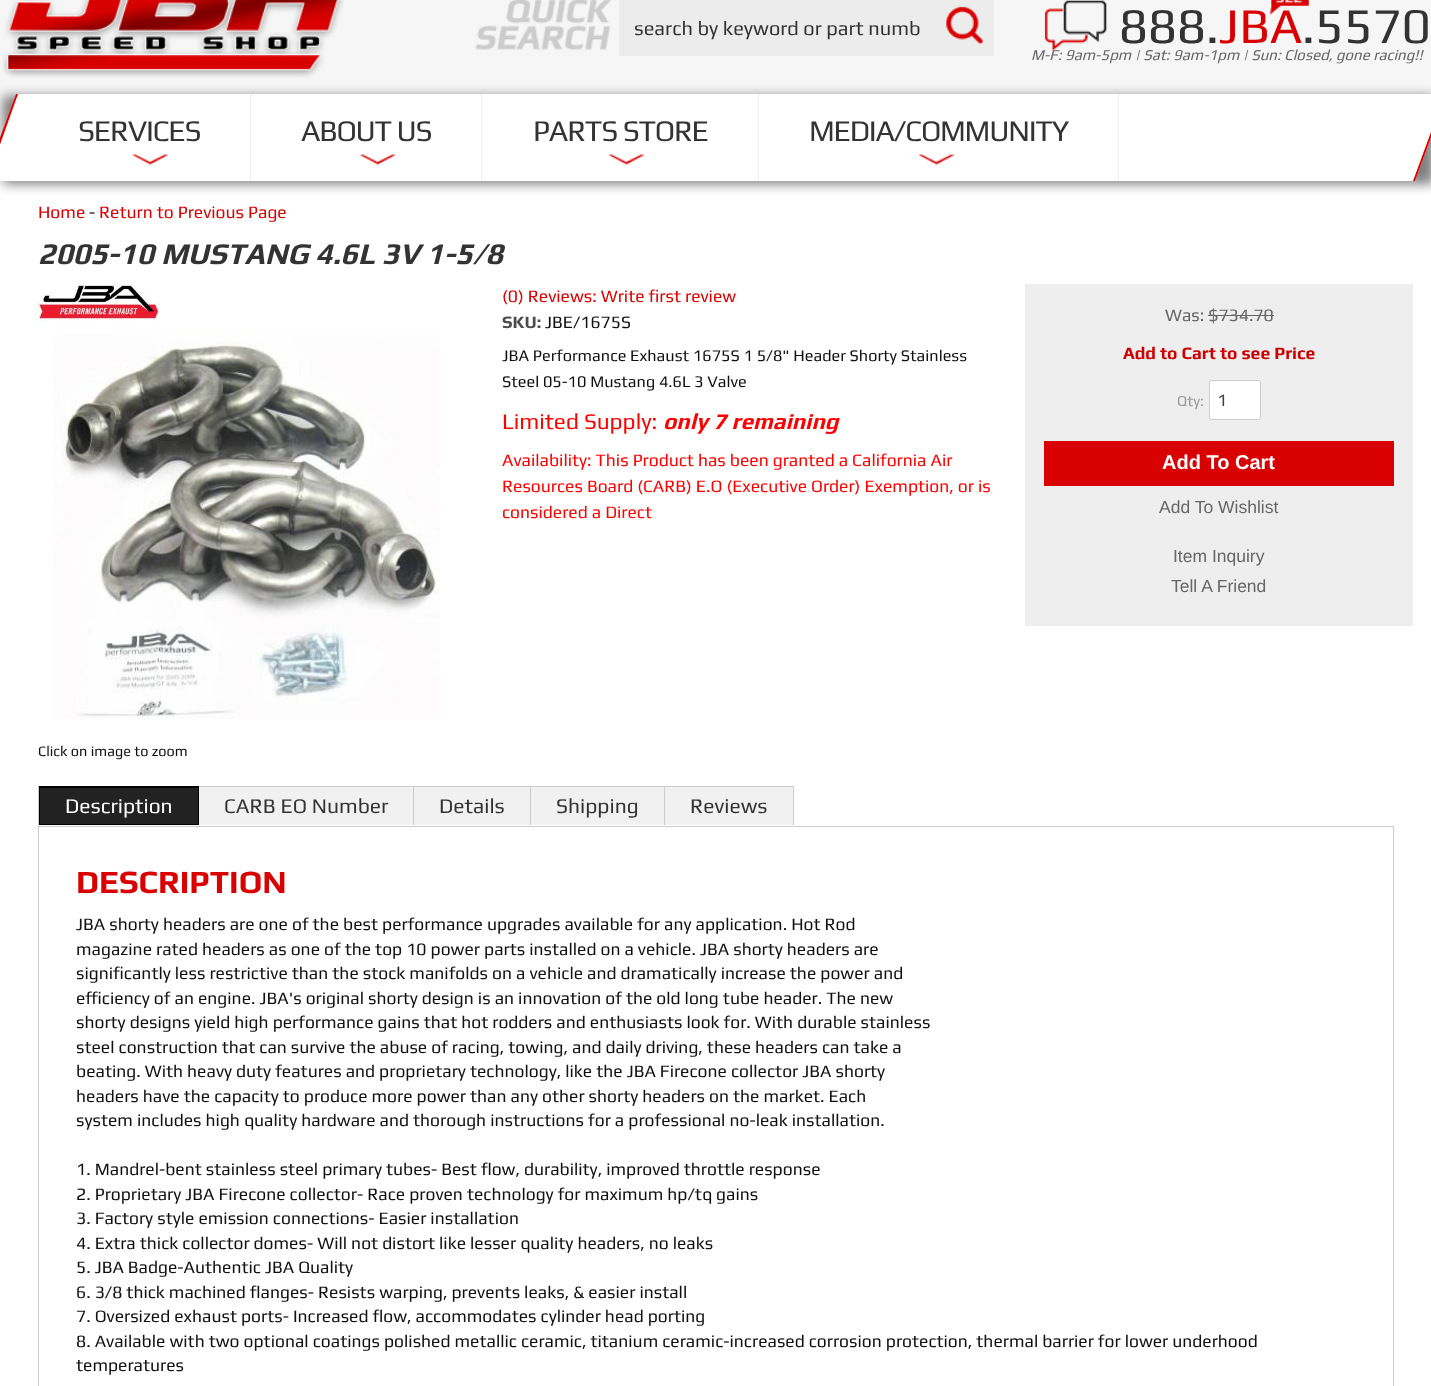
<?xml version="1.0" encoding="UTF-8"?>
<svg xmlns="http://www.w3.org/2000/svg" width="1431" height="1386">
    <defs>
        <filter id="blur1" x="-50%" y="-200%" width="200%" height="500%"><feGaussianBlur stdDeviation="6"/></filter>
    </defs>
    <rect width="100%" height="100%" fill="#FFFFFF"/>
    <rect x="0" y="0" width="1431" height="144" fill="#F6F6F6"/>
    <image x="2" y="0" width="342" height="78" href="img_01.png"/>
    <image x="1269" y="0" width="40" height="15" href="img_02.png"/>
    <rect x="619" y="0" width="375" height="56" fill="#EDECEC"/>
    <image x="475" y="0" width="137" height="50" href="img_03.png"/>
    <text x="634" y="35" font-family="Play" font-size="20" fill="#333333">search by keyword or part numb</text>
    <image x="946" y="6" width="37" height="38" href="img_04.png"/>
    <text x="1031" y="60" font-family="Play" font-size="15" font-style="italic" fill="#666666">M-F: 9am-5pm | Sat: 9am-1pm | Sun: Closed, gone racing!!</text>
    <image x="1044" y="0" width="63" height="51" href="img_05.png"/>
    <text x="1119" y="43" font-family="Play" font-size="50" fill="#333333">888.</text>
    <text x="1219" y="43" font-family="Play" font-size="50" fill="#D80000">JBA</text>
    <text x="1302" y="43" font-family="Play" font-size="50" fill="#333333">.5570</text>
    <rect x="3" y="96" width="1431" height="88" fill="#000000" fill-opacity="0.5" filter="url(#blur1)"/>
    <path d="M 16 94 H 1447 L 1415 181 H -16 Z" fill="#FFFFFF"/>
    <path d="M 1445 94 H 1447 L 1415 181 H 1413 Z" fill="#D80000"/>
    <path d="M 16 94 H 18 L -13 181 H -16 Z" fill="#D80000"/>
    <rect x="250" y="94" width="1" height="87" fill="#EEEEEE"/>
    <text x="78" y="141" font-family="Play" font-size="30" letter-spacing="-1.25" fill="#333333">SERVICES</text>
    <image x="132" y="154" width="37" height="11" href="img_06.png"/>
    <rect x="481" y="94" width="1" height="87" fill="#EEEEEE"/>
    <text x="301" y="141" font-family="Play" font-size="30" letter-spacing="-1.25" fill="#333333">ABOUT US</text>
    <image x="360" y="154" width="36" height="11" href="img_07.png"/>
    <rect x="758" y="94" width="1" height="87" fill="#EEEEEE"/>
    <text x="533" y="141" font-family="Play" font-size="30" letter-spacing="-1.25" fill="#333333">PARTS STORE</text>
    <image x="608" y="154" width="37" height="11" href="img_08.png"/>
    <rect x="1118" y="94" width="1" height="87" fill="#EEEEEE"/>
    <text x="809" y="141" font-family="Play" font-size="30" letter-spacing="-1.25" fill="#333333">MEDIA/COMMUNITY</text>
    <image x="918" y="154" width="37" height="11" href="img_09.png"/>
    <text x="38" y="218" font-family="Play" font-size="17.5" fill="#D80000">Home</text>
    <text x="89" y="218" font-family="Play" font-size="17.5" fill="#111111">-</text>
    <text x="99" y="218" font-family="Play" font-size="17.5" fill="#D80000">Return to Previous Page</text>
    <text x="38" y="264" font-family="Play" font-size="30" font-weight="700" font-style="italic" fill="#333333">2005-10 MUSTANG 4.6L 3V 1-5/8</text>
    <text x="502" y="302" font-family="Play" font-size="17.5" fill="#D80000">(0) Reviews: Write first review</text>
    <text x="502" y="328" font-family="Play" font-size="17.5" font-weight="700" fill="#4D4D4D">SKU:</text>
    <text x="545" y="328" font-family="Play" font-size="17.5" fill="#111111">JBE/1675S</text>
    <text font-family="Play" font-size="16.25" fill="#111111">
        <tspan x="502" y="361">JBA Performance Exhaust 1675S 1 5/8" Header Shorty Stainless</tspan>
        <tspan x="502" y="387">Steel 05-10 Mustang 4.6L 3 Valve</tspan>
    </text>
    <text x="502" y="429" font-family="Play" font-size="22.5" fill="#FF0000">Limited Supply:</text>
    <text x="663" y="429" font-family="Play" font-size="22.5" font-weight="700" font-style="italic" fill="#FF0000">only 7 remaining</text>
    <text font-family="Play" font-size="17.5" fill="#FF0000">
        <tspan x="502" y="466">Availability: This Product has been granted a California Air</tspan>
        <tspan x="502" y="492">Resources Board (CARB) E.O (Executive Order) Exemption, or is</tspan>
        <tspan x="502" y="518">considered a Direct</tspan>
    </text>
    <rect x="1025" y="284" width="388" height="342" fill="#EEEEEE"/>
    <text x="1165" y="321" font-family="Play" font-size="17.5" fill="#666666">Was: $734.70</text>
    <rect x="1208" y="315" width="66" height="1" fill="#666666"/>
    <text x="1123" y="359" font-family="Play" font-size="17.5" font-weight="700" fill="#CC0000">Add to Cart to see Price</text>
    <text x="1177" y="406" font-family="Play" font-size="15" fill="#999999">Qty:</text>
    <rect x="1209.5" y="380.5" width="51" height="39" rx="2" fill="#FFFFFF" stroke="#CCCCCC"/>
    <text x="1217" y="406" font-family="Play" font-size="17.5" fill="#404040">1</text>
    <rect x="1044" y="441" width="350" height="45" fill="#D80000"/>
    <text x="1162" y="469" font-family="Liberation Sans" font-size="20" font-weight="700" fill="#FFFFFF">Add To Cart</text>
    <text x="1159" y="513" font-family="Liberation Sans" font-size="17.5" fill="#666666">Add To Wishlist</text>
    <text x="1173" y="562" font-family="Liberation Sans" font-size="17.5" fill="#666666">Item Inquiry</text>
    <text x="1171" y="592" font-family="Liberation Sans" font-size="17.5" fill="#666666">Tell A Friend</text>
    <image x="37" y="283" width="123" height="38" href="img_10.png"/>
    <image x="53" y="334" width="387" height="385" href="img_11.png"/>
    <text x="38" y="756" font-family="Play" font-size="14.5" fill="#111111">Click on image to zoom</text>
    <rect x="38" y="786" width="1" height="40" fill="#CCCCCC"/>
    <rect x="39" y="786" width="160" height="39" fill="#000000"/>
    <rect x="40" y="788" width="158" height="36" fill="#222222"/>
    <text x="65" y="813" font-family="Play" font-size="21" fill="#FFFFFF">Description</text>
    <rect x="199" y="787" width="214" height="38" fill="#F1F1F1"/>
    <rect x="199" y="786" width="595" height="1" fill="#CCCCCC"/>
    <rect x="413" y="786" width="1" height="39" fill="#CCCCCC"/>
    <text x="224" y="813" font-family="Play" font-size="21" fill="#333333">CARB EO Number</text>
    <rect x="414" y="787" width="116" height="38" fill="#F1F1F1"/>
    <rect x="530" y="786" width="1" height="39" fill="#CCCCCC"/>
    <text x="439" y="813" font-family="Play" font-size="21" fill="#333333">Details</text>
    <rect x="531" y="787" width="133" height="38" fill="#F1F1F1"/>
    <rect x="664" y="786" width="1" height="39" fill="#CCCCCC"/>
    <text x="556" y="813" font-family="Play" font-size="21" fill="#333333">Shipping</text>
    <rect x="665" y="787" width="128" height="38" fill="#F1F1F1"/>
    <rect x="793" y="786" width="1" height="39" fill="#CCCCCC"/>
    <text x="690" y="813" font-family="Play" font-size="21" fill="#333333">Reviews</text>
    <rect x="38.5" y="826.5" width="1355" height="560" fill="none" stroke="#CCCCCC"/>
    <text x="76" y="893" font-family="Play" font-size="32.5" font-weight="700" fill="#D80000">DESCRIPTION</text>
    <text font-family="Play" font-size="17.5" fill="#111111">
        <tspan x="76" y="930">JBA shorty headers are one of the best performance upgrades available for any application. Hot Rod</tspan>
        <tspan x="76" y="955">magazine rated headers as one of the top 10 power parts installed on a vehicle. JBA shorty headers are</tspan>
        <tspan x="76" y="979">significantly less restrictive than the stock manifolds on a vehicle and dramatically increase the power and</tspan>
        <tspan x="76" y="1004">efficiency of an engine. JBA's original shorty design is an innovation of the old long tube header. The new</tspan>
        <tspan x="76" y="1028">shorty designs yield high performance gains that hot rodders and enthusiasts look for. With durable stainless</tspan>
        <tspan x="76" y="1053">steel construction that can survive the abuse of racing, towing, and daily driving, these headers can take a</tspan>
        <tspan x="76" y="1077">beating. With heavy duty features and proprietary technology, like the JBA Firecone collector JBA shorty</tspan>
        <tspan x="76" y="1102">headers have the capacity to produce more power than any other shorty headers on the market. Each</tspan>
        <tspan x="76" y="1126">system includes high quality hardware and thorough instructions for a professional no-leak installation.</tspan>
    </text>
    <text font-family="Play" font-size="17.5" fill="#111111">
        <tspan x="76" y="1175">1. Mandrel-bent stainless steel primary tubes- Best flow, durability, improved throttle response</tspan>
        <tspan x="76" y="1200">2. Proprietary JBA Firecone collector- Race proven technology for maximum hp/tq gains</tspan>
        <tspan x="76" y="1224">3. Factory style emission connections- Easier installation</tspan>
        <tspan x="76" y="1249">4. Extra thick collector domes- Will not distort like lesser quality headers, no leaks</tspan>
        <tspan x="76" y="1273">5. JBA Badge-Authentic JBA Quality</tspan>
        <tspan x="76" y="1298">6. 3/8 thick machined flanges- Resists warping, prevents leaks, &amp; easier install</tspan>
        <tspan x="76" y="1322">7. Oversized exhaust ports- Increased flow, accommodates cylinder head porting</tspan>
        <tspan x="76" y="1347">8. Available with two optional coatings polished metallic ceramic, titanium ceramic-increased corrosion protection, thermal barrier for lower underhood</tspan>
        <tspan x="76" y="1371">temperatures</tspan>
    </text>
</svg>
